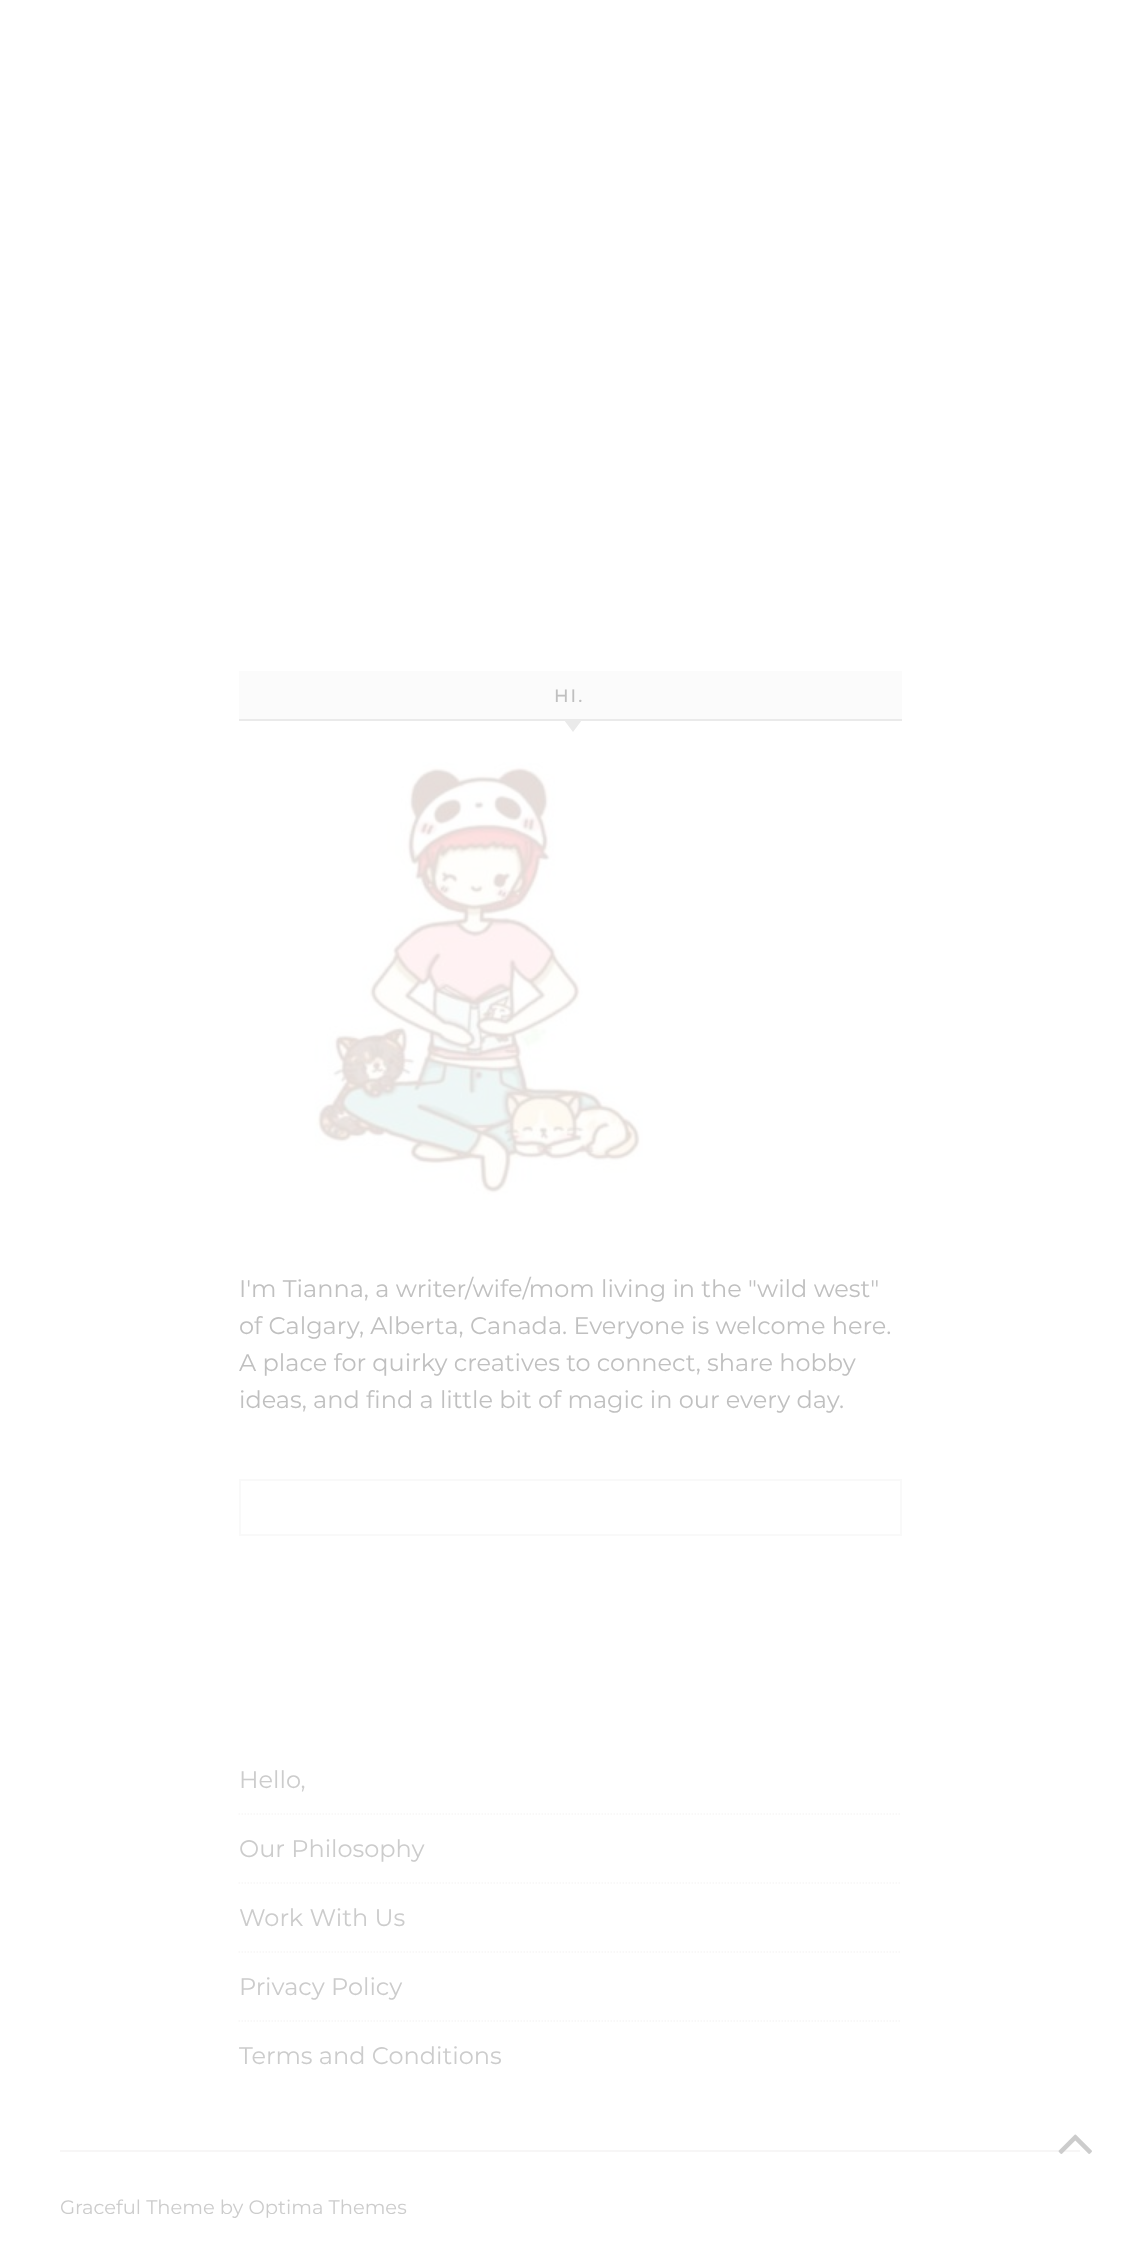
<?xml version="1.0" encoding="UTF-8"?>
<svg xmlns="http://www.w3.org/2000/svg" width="1139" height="2261">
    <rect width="100%" height="100%" fill="#FFFFFF"/>
    <rect x="239" y="671" width="663" height="48" fill="#FBFBFB"/>
    <rect x="239" y="719" width="663" height="2" fill="#EAEAEA"/>
    <text x="554" y="702" font-family="'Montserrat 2'" font-size="18" font-weight="100" letter-spacing="2" fill="#C0C0C0">HI.</text>
    <path d="M 564 720 H 582 L 573 732 Z" fill="#EAEAEA"/>
    <image x="314" y="762" width="329" height="438" href="img_01.png"/>
    <text font-family="Montserrat" font-size="24" font-weight="100" fill="#C0C0C0">
        <tspan x="239" y="1297">I'm Tianna, a writer/wife/mom living in the "wild west"</tspan>
        <tspan x="239" y="1334">of Calgary, Alberta, Canada. Everyone is welcome here.</tspan>
        <tspan x="239" y="1371">A place for quirky creatives to connect, share hobby</tspan>
        <tspan x="239" y="1408">ideas, and find a little bit of magic in our every day.</tspan>
    </text>
    <rect x="240" y="1480" width="661" height="55" fill="none" stroke="#F9F9F9" stroke-width="2"/>
    <rect x="60" y="2150" width="1020" height="2" fill="#F7F6F6"/>
    <path d="M 238.5 1814 H 901.5" fill="none" stroke="#F7F6F6" stroke-width="1.5" stroke-dasharray="1.5 1.5"/>
    <text x="239" y="1788" font-family="Montserrat" font-size="24" font-weight="100" fill="#CCCCCC">Hello,</text>
    <path d="M 238.5 1883 H 901.5" fill="none" stroke="#F7F6F6" stroke-width="1.5" stroke-dasharray="1.5 1.5"/>
    <text x="239" y="1857" font-family="Montserrat" font-size="24" font-weight="100" fill="#CCCCCC">Our Philosophy</text>
    <path d="M 238.5 1952 H 901.5" fill="none" stroke="#F7F6F6" stroke-width="1.5" stroke-dasharray="1.5 1.5"/>
    <text x="239" y="1926" font-family="Montserrat" font-size="24" font-weight="100" fill="#CCCCCC">Work With Us</text>
    <path d="M 238.5 2021 H 901.5" fill="none" stroke="#F7F6F6" stroke-width="1.5" stroke-dasharray="1.5 1.5"/>
    <text x="239" y="1995" font-family="Montserrat" font-size="24" font-weight="100" fill="#CCCCCC">Privacy Policy</text>
    <text x="239" y="2064" font-family="Montserrat" font-size="24" font-weight="100" fill="#CCCCCC">Terms and Conditions</text>
    <image x="1058" y="2134" width="34" height="20" href="img_02.png"/>
    <text x="60" y="2214" font-family="Montserrat" font-size="19.5" font-weight="100" fill="#CCCCCC">Graceful Theme by Optima Themes</text>
</svg>
